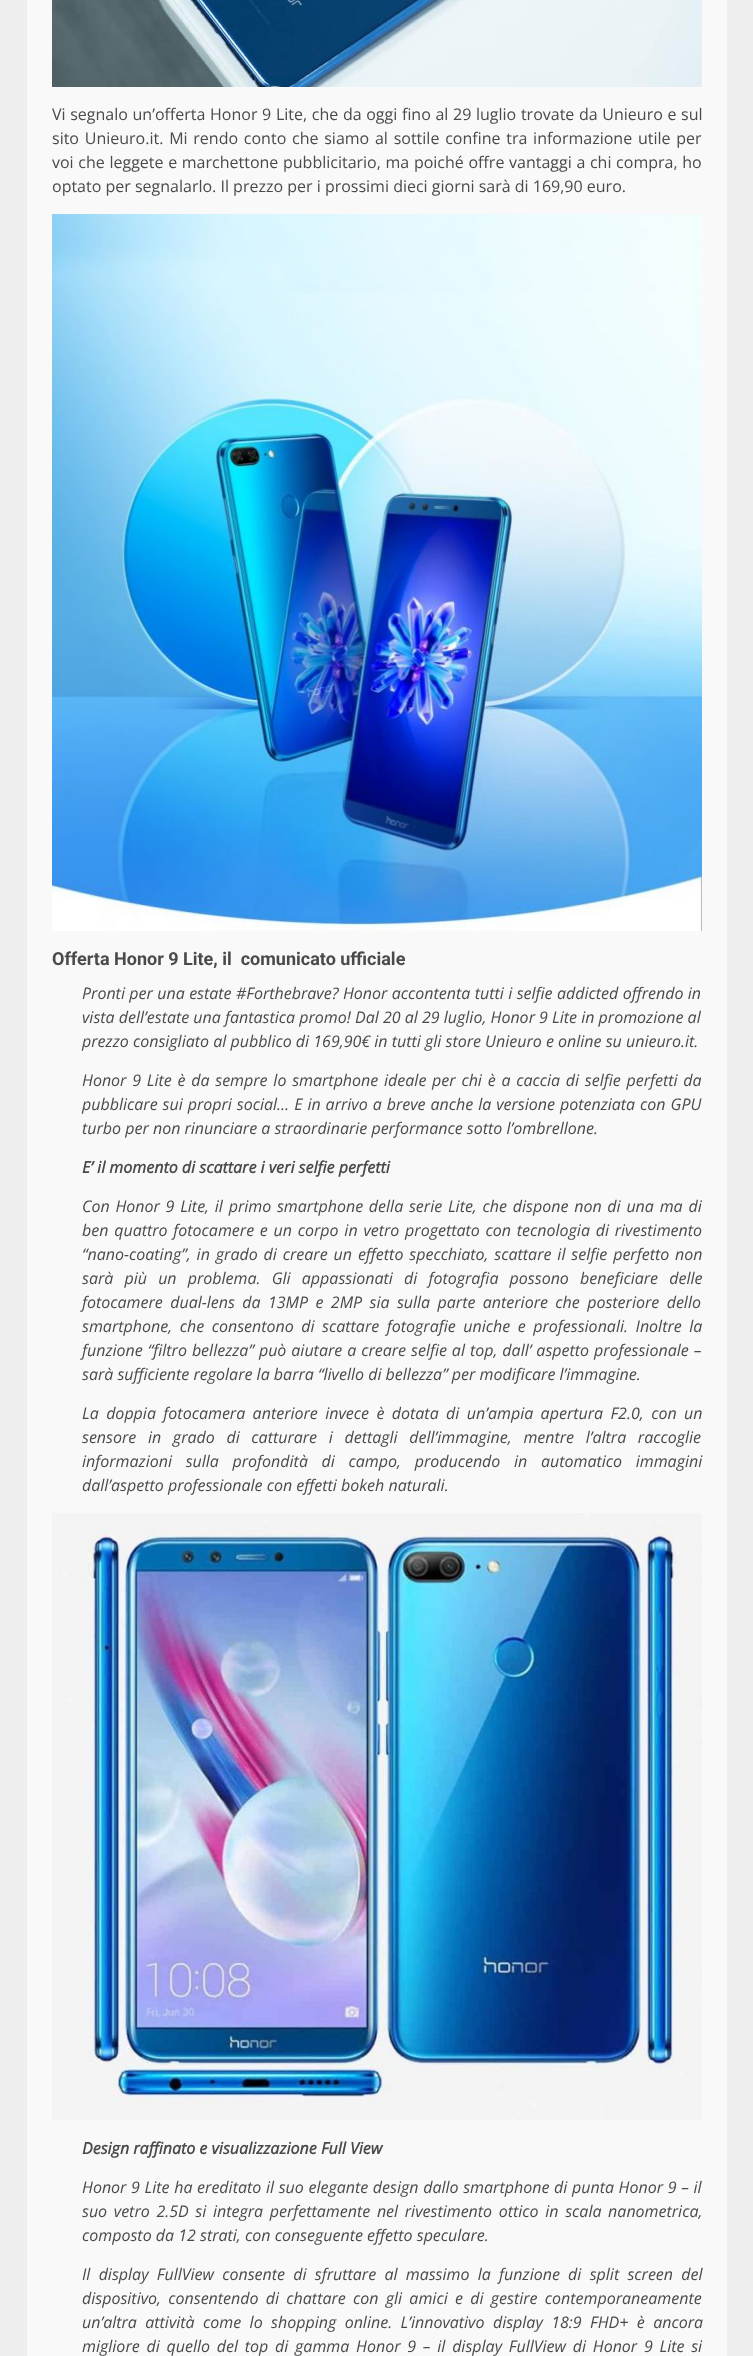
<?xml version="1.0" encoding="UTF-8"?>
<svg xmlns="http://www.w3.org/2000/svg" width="753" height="2356">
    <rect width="100%" height="100%" fill="#EEEEEE"/>
    <rect x="27" y="0" width="700" height="2356" fill="#F9F9F9"/>
    <image x="52" y="0" width="650" height="87" href="img_01.png"/>
    <text font-family="Open Sans" font-size="16" fill="#4A4A4A">
        <tspan x="52" y="120" word-spacing="0.5">Vi segnalo un’offerta Honor 9 Lite, che da oggi fino al 29 luglio trovate da Unieuro e sul</tspan>
        <tspan x="52" y="144" word-spacing="1.6">sito Unieuro.it. Mi rendo conto che siamo al sottile confine tra informazione utile per</tspan>
        <tspan x="52" y="168" word-spacing="0.5">voi che leggete e marchettone pubblicitario, ma poiché offre vantaggi a chi compra, ho</tspan>
        <tspan x="52" y="192">optato per segnalarlo. Il prezzo per i prossimi dieci giorni sarà di 169,90 euro.</tspan>
    </text>
    <image x="52" y="214" width="650" height="717" href="img_02.png"/>
    <text x="52" y="965" font-family="Roboto" font-size="18" font-weight="700" fill="#4A4A4A" xml:space="preserve">Offerta Honor 9 Lite, il  comunicato ufficiale</text>
    <text font-family="Open Sans" font-size="16" font-style="italic" fill="#4A4A4A">
        <tspan x="82" y="999" word-spacing="0.25">Pronti per una estate #Forthebrave? Honor accontenta tutti i selfie addicted offrendo in</tspan>
        <tspan x="82" y="1023">vista dell’estate una fantastica promo! Dal 20 al 29 luglio, Honor 9 Lite in promozione al</tspan>
        <tspan x="82" y="1047">prezzo consigliato al pubblico di 169,90€ in tutti gli store Unieuro e online su unieuro.it.</tspan>
    </text>
    <text font-family="Open Sans" font-size="16" font-style="italic" fill="#4A4A4A">
        <tspan x="82" y="1086" word-spacing="1.6">Honor 9 Lite è da sempre lo smartphone ideale per chi è a caccia di selfie perfetti da</tspan>
        <tspan x="82" y="1110" word-spacing="0.8">pubblicare sui propri social… E in arrivo a breve anche la versione potenziata con GPU</tspan>
        <tspan x="82" y="1134">turbo per non rinunciare a straordinarie performance sotto l’ombrellone.</tspan>
    </text>
    <text x="82" y="1173" font-family="Open Sans" font-size="16" font-weight="700" font-style="italic" fill="#4A4A4A">E’ il momento di scattare i veri selfie perfetti</text>
    <text font-family="Open Sans" font-size="16" font-style="italic" fill="#4A4A4A">
        <tspan x="82" y="1212" word-spacing="1.6">Con Honor 9 Lite, il primo smartphone della serie Lite, che dispone non di una ma di</tspan>
        <tspan x="82" y="1236" word-spacing="1.6">ben quattro fotocamere e un corpo in vetro progettato con tecnologia di rivestimento</tspan>
        <tspan x="82" y="1260" word-spacing="1.75">“nano-coating”, in grado di creare un effetto specchiato, scattare il selfie perfetto non</tspan>
        <tspan x="82" y="1284" word-spacing="7">sarà più un problema. Gli appassionati di fotografia possono beneficiare delle</tspan>
        <tspan x="82" y="1308" word-spacing="3.25">fotocamere dual-lens da 13MP e 2MP sia sulla parte anteriore che posteriore dello</tspan>
        <tspan x="82" y="1332" word-spacing="3.4">smartphone, che consentono di scattare fotografie uniche e professionali. Inoltre la</tspan>
        <tspan x="82" y="1356" word-spacing="0.8">funzione “filtro bellezza” può aiutare a creare selfie al top, dall’ aspetto professionale –</tspan>
        <tspan x="82" y="1380">sarà sufficiente regolare la barra “livello di bellezza” per modificare l’immagine.</tspan>
    </text>
    <text font-family="Open Sans" font-size="16" font-style="italic" fill="#4A4A4A">
        <tspan x="82" y="1419" word-spacing="3.25">La doppia fotocamera anteriore invece è dotata di un’ampia apertura F2.0, con un</tspan>
        <tspan x="82" y="1443" word-spacing="7.5">sensore in grado di catturare i dettagli dell’immagine, mentre l’altra raccoglie</tspan>
        <tspan x="82" y="1467" word-spacing="9.5">informazioni sulla profondità di campo, producendo in automatico immagini</tspan>
        <tspan x="82" y="1491">dall’aspetto professionale con effetti bokeh naturali.</tspan>
    </text>
    <image x="52" y="1513" width="650" height="607" href="img_03.png"/>
    <text x="82" y="2154" font-family="Open Sans" font-size="16" font-weight="700" font-style="italic" fill="#4A4A4A">Design raffinato e visualizzazione Full View</text>
    <text font-family="Open Sans" font-size="16" font-style="italic" fill="#4A4A4A">
        <tspan x="82" y="2193" word-spacing="0.5">Honor 9 Lite ha ereditato il suo elegante design dallo smartphone di punta Honor 9 – il</tspan>
        <tspan x="82" y="2217" word-spacing="2.5">suo vetro 2.5D si integra perfettamente nel rivestimento ottico in scala nanometrica,</tspan>
        <tspan x="82" y="2241">composto da 12 strati, con conseguente effetto speculare.</tspan>
    </text>
    <text font-family="Open Sans" font-size="16" font-style="italic" fill="#4A4A4A">
        <tspan x="82" y="2280" word-spacing="4.1">Il display FullView consente di sfruttare al massimo la funzione di split screen del</tspan>
        <tspan x="82" y="2304" word-spacing="3.1">dispositivo, consentendo di chattare con gli amici e di gestire contemporaneamente</tspan>
        <tspan x="82" y="2328" word-spacing="4.25">un’altra attività come lo shopping online. L’innovativo display 18:9 FHD+ è ancora</tspan>
        <tspan x="82" y="2352" word-spacing="2.6">migliore di quello del top di gamma Honor 9 – il display FullView di Honor 9 Lite si</tspan>
    </text>
</svg>
